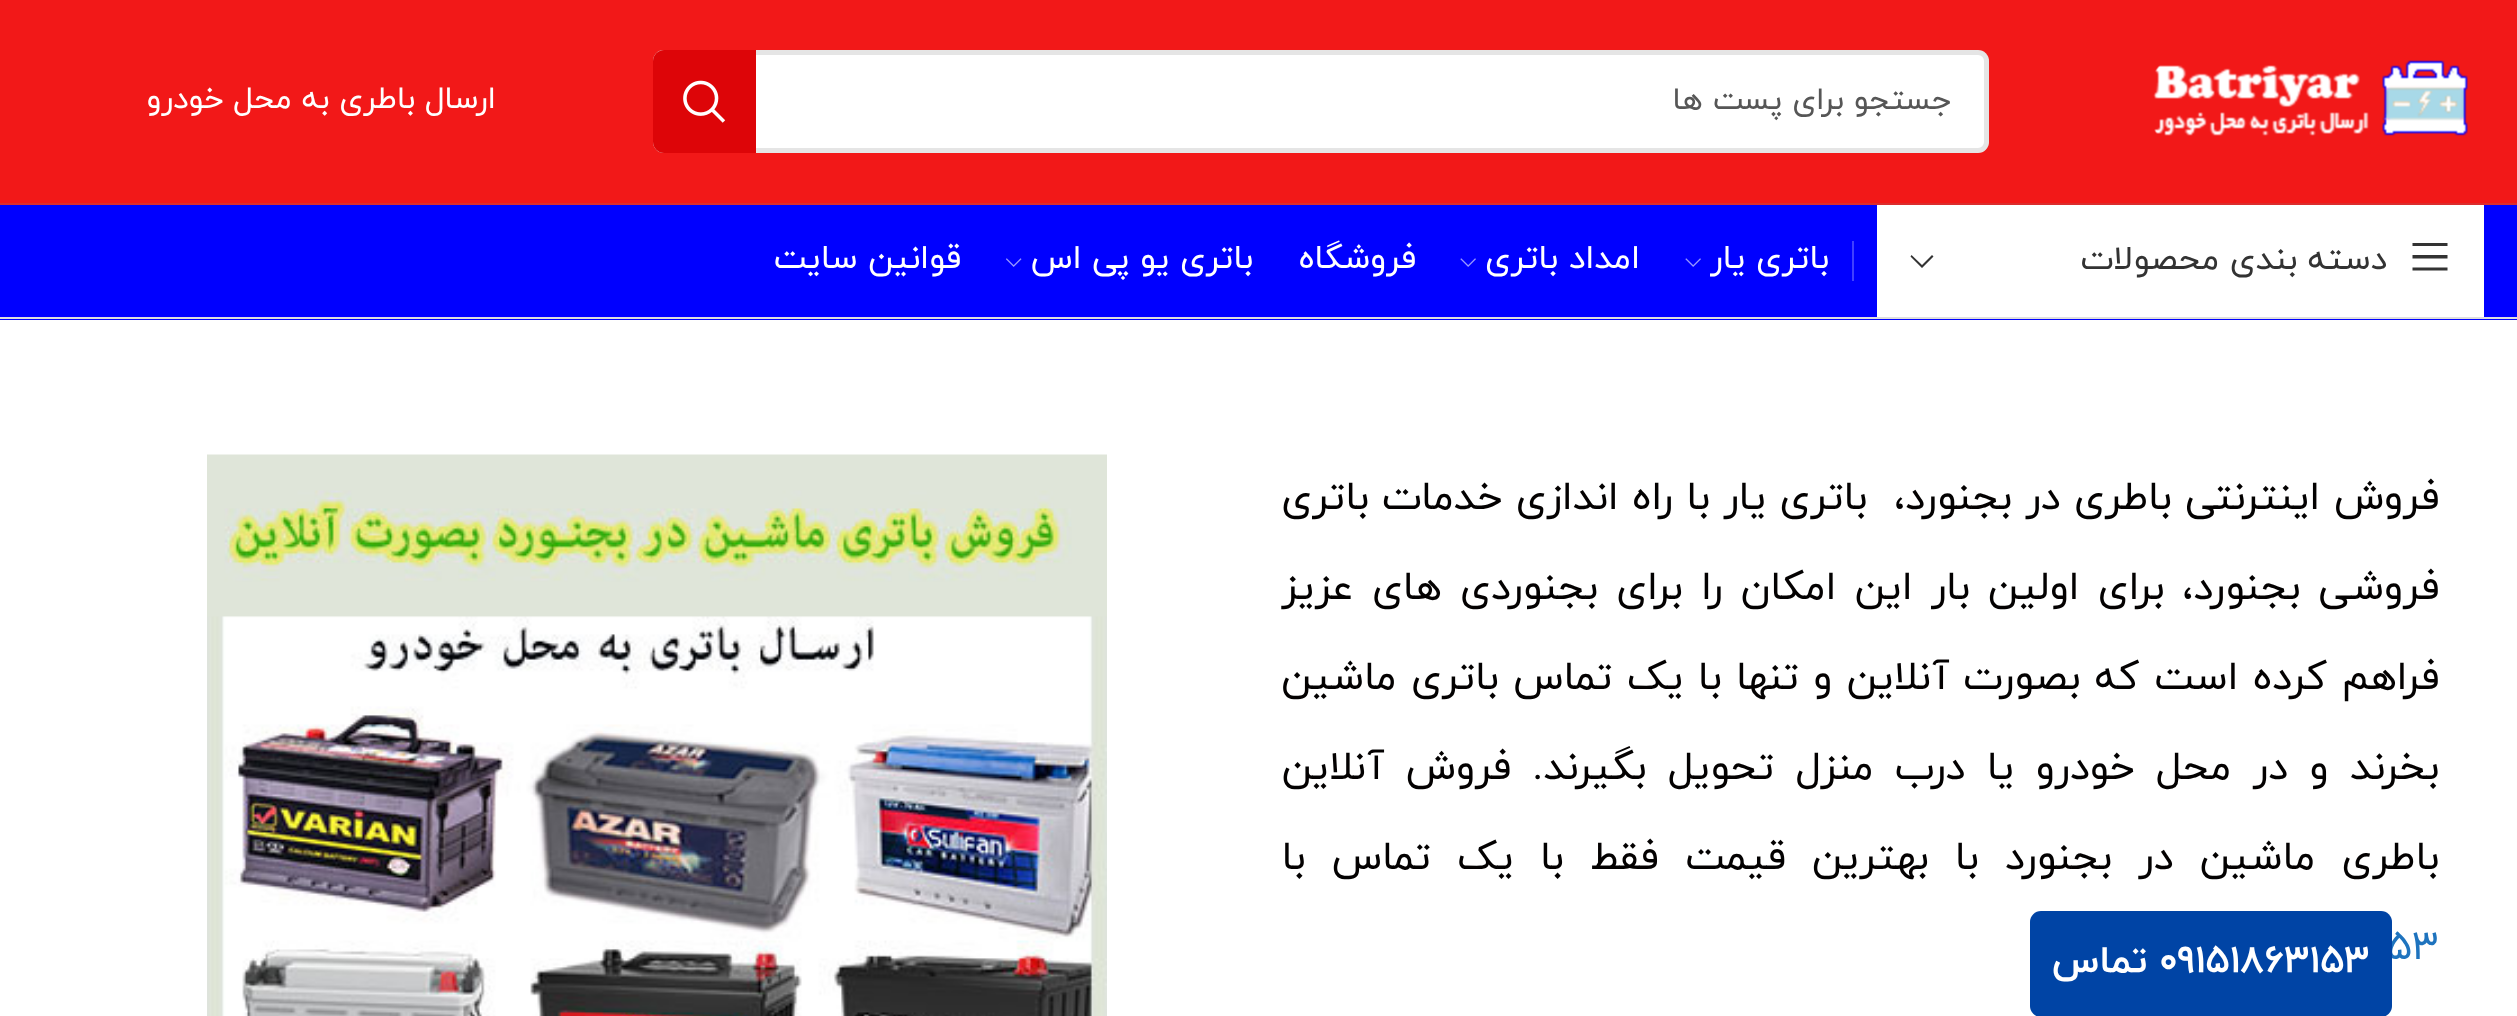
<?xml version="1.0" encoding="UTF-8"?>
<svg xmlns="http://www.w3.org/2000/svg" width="2517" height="1016">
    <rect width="100%" height="100%" fill="#FFFFFF"/>
    <rect x="0" y="0" width="2517" height="203" fill="#F21818"/>
    <rect x="0" y="203" width="2517" height="2" fill="#DB2D2D"/>
    <image x="2153" y="60" width="315" height="76" href="img_01.png"/>
    <rect x="653" y="50" width="1336" height="103" rx="11" fill="#FFFFFF"/>
    <rect x="655.5" y="52.5" width="1331" height="98" rx="8.5" fill="none" stroke="#000000" stroke-opacity="0.1" stroke-width="5"/>
    <text x="1951" y="109" font-family="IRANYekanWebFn" font-size="31.5" direction="rtl" fill="#565656">جستجو برای پست ها</text>
    <path d="M 664 50 H 756 V 153 H 664 C 658 153 653 148 653 142 V 61 C 653 55 658 50 664 50 Z" fill="#DD0508"/>
    <image x="683" y="80" width="43" height="43" href="img_02.png"/>
    <text x="496" y="108" font-family="IRANYekanWebFn" font-size="31.5" direction="rtl" fill="#FFFFFF">ارسال باطری به محل خودرو</text>
    <rect x="0" y="205" width="2517" height="115" fill="#0000FF"/>
    <rect x="0" y="317" width="2517" height="2" fill="#DEDEDE"/>
    <rect x="1877" y="205" width="607" height="112" fill="#FFFFFF"/>
    <path d="M 2412.5 246 H 2447.5 V 243 H 2412.5 Z M 2412.5 258.5 H 2447.5 V 255 H 2412.5 Z M 2412.5 270.5 H 2447.5 V 267.5 H 2412.5 Z" fill="#333333"/>
    <text x="2387" y="269" font-family="IRANYekanWebFn" font-size="33.75" direction="rtl" fill="#333333">دسته بندی محصولات</text>
    <path d="M 1932 255 L 1922 265 L 1911.5 255 L 1910.5 256.5 L 1922 268 L 1933.5 256.5 Z" fill="#333333"/>
    <rect x="1852" y="241" width="2" height="40" fill="#4040FF"/>
    <text x="1829" y="268" font-family="IRANYekanWebFn" font-size="33.75" direction="rtl" fill="#FFFFFF">باتری یار</text>
    <image x="1685" y="258" width="16" height="9" href="img_03.png"/>
    <text x="1640" y="268" font-family="IRANYekanWebFn" font-size="33.75" direction="rtl" fill="#FFFFFF">امداد باتری</text>
    <image x="1460" y="258" width="16" height="9" href="img_03.png"/>
    <text x="1416" y="268" font-family="IRANYekanWebFn" font-size="33.75" direction="rtl" fill="#FFFFFF">فروشگاه</text>
    <text x="1253" y="268" font-family="IRANYekanWebFn" font-size="33.75" direction="rtl" fill="#FFFFFF">باتری یو پی اس</text>
    <image x="1006" y="258" width="16" height="9" href="img_04.png"/>
    <text x="961" y="268" font-family="IRANYekanWebFn" font-size="33.75" direction="rtl" fill="#FFFFFF">قوانین سایت</text>
    <text x="2439" y="509" word-spacing="0.75" font-family="IRANYekanWebFn" font-size="40.5" direction="rtl" fill="#030101" xml:space="preserve">فروش اینترنتی باطری در بجنورد،  باتری یار با راه اندازی خدمات باتری</text>
    <text x="2439" y="599" word-spacing="5.6" font-family="IRANYekanWebFn" font-size="40.5" direction="rtl" fill="#030101">فروشی بجنورد، برای اولین بار این امکان را برای بجنوردی های عزیز</text>
    <text x="2439" y="689" word-spacing="1.75" font-family="IRANYekanWebFn" font-size="40.5" direction="rtl" fill="#030101">فراهم کرده است که بصورت آنلاین و تنها با یک تماس باتری ماشین</text>
    <text x="2439" y="779" word-spacing="8.75" font-family="IRANYekanWebFn" font-size="40.5" direction="rtl" fill="#030101">بخرند و در محل خودرو یا درب منزل تحویل بگیرند. فروش آنلاین</text>
    <text x="2439" y="869" word-spacing="13.6" font-family="IRANYekanWebFn" font-size="40.5" direction="rtl" fill="#030101">باطری ماشین در بجنورد با بهترین قیمت فقط با یک تماس با</text>
    <text x="2387" y="959" font-family="IRANYekanWebFn" font-size="40.5" fill="#1E73BE">53</text>
    <image x="207" y="454" width="900" height="562" href="img_05.png"/>
    <rect x="2030" y="911" width="362" height="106" rx="11" fill="#0044A5"/>
    <text x="2159" y="972" font-family="IRANYekanWebFn" font-size="38.25" font-weight="700" fill="#FFFFFF">09151863153</text>
    <text x="2147" y="972" font-family="IRANYekanWebFn" font-size="38.25" font-weight="700" direction="rtl" fill="#FFFFFF">تماس</text>
</svg>
